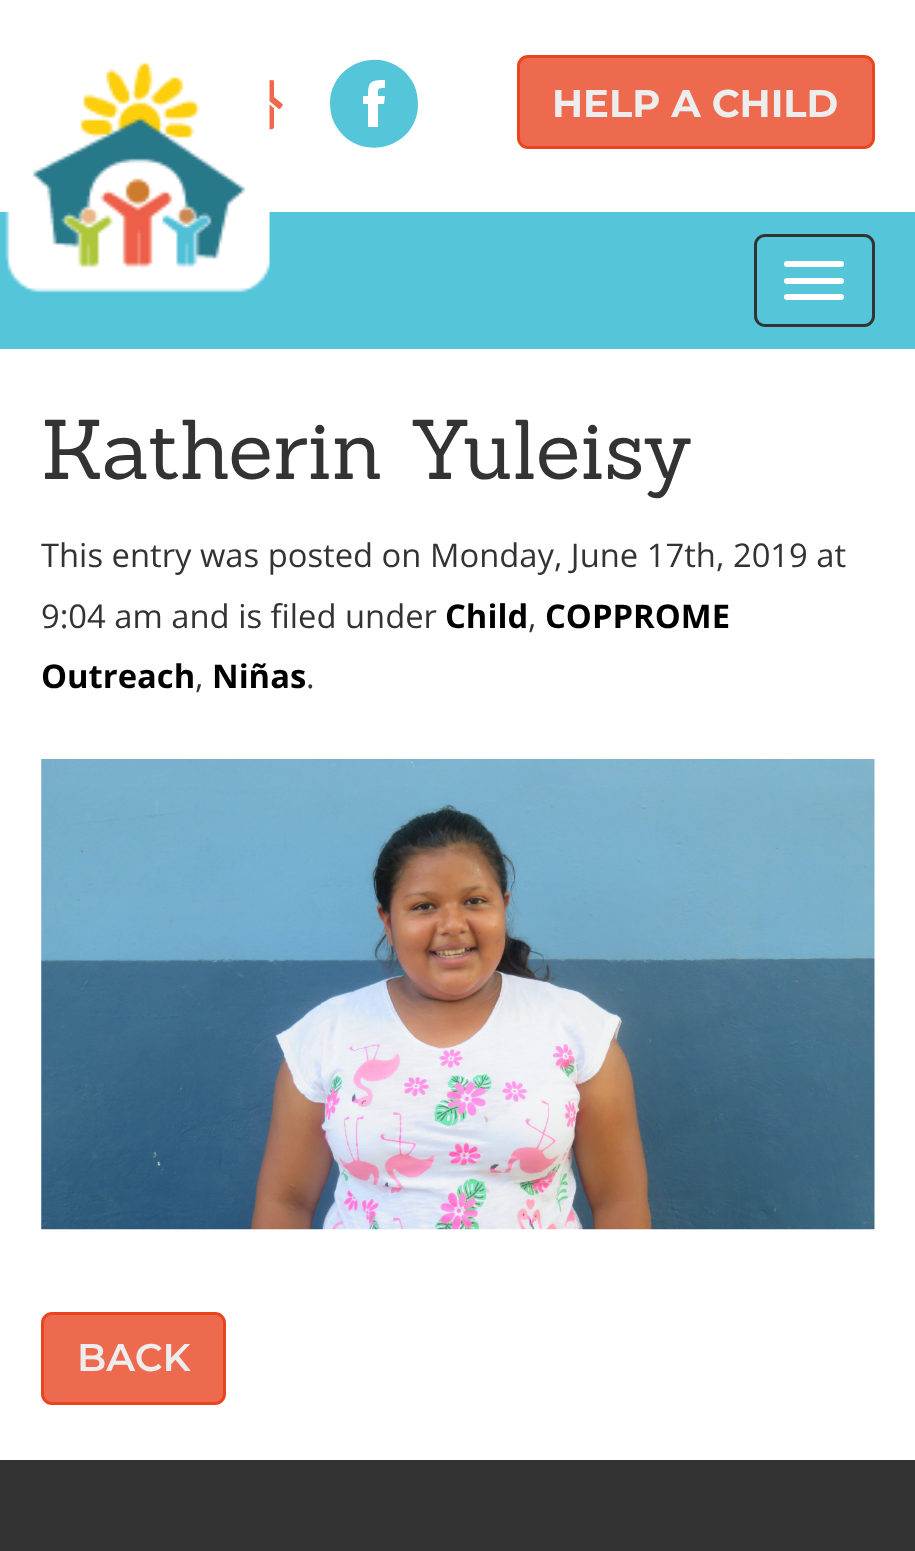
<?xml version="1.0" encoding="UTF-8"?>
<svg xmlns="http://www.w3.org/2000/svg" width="915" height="1551">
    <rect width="100%" height="100%" fill="#FFFFFF"/>
    <rect x="0" y="212" width="915" height="137" fill="#55C5D9"/>
    <image x="269" y="80" width="14" height="50" href="img_02.png"/>
    <image x="5" y="63" width="265" height="230" href="img_01.png"/>
    <rect x="755.5" y="235.5" width="118" height="90" rx="9.5" fill="none" stroke="#333333" stroke-width="3"/>
    <rect x="784" y="261" width="60" height="6" rx="3" fill="#FFFFFF"/>
    <rect x="784" y="278" width="60" height="6" rx="3" fill="#FFFFFF"/>
    <rect x="784" y="294" width="60" height="6" rx="3" fill="#FFFFFF"/>
    <path d="M 412 81 C 417 89 418 98 418 107 C 415 150 358 163 336 126 C 331 118 330 109 330 101 C 333 58 390 44 412 81 Z" fill="#55C5D9"/>
    <path d="M 378 96 H 385 L 384 104 H 378 V 127 H 368 V 104 H 363 V 96 H 368 C 368 81 371 80 385 80 V 88 C 377 88 378 88 378 96 Z" fill="#FFFFFF"/>
    <rect x="518.5" y="56.5" width="355" height="91" rx="9.5" fill="#EE6A4F" stroke="#EA4320" stroke-width="3"/>
    <text x="552" y="117" font-family="Montserrat" font-size="38.5" font-weight="700" fill="#EDEDED">HELP A CHILD</text>
    <text x="41" y="479" font-family="Sanchez" font-size="82.5" fill="#333333">Katherin Yuleisy</text>
    <text x="41" y="567" font-family="Open Sans" font-size="32.75" fill="#333333">This entry was posted on</text>
    <text x="430" y="567" font-family="Open Sans" font-size="32.75" fill="#333333">Monday, June 17th, 2019 at</text>
    <text x="41" y="628" font-family="Open Sans" font-size="32.75" fill="#333333">9:04 am and is filed under</text>
    <text x="445" y="628" font-family="Open Sans" font-size="32.75" font-weight="700" fill="#000000">Child</text>
    <text x="528" y="628" font-family="Open Sans" font-size="32.75" fill="#333333">,</text>
    <text x="545" y="628" font-family="Open Sans" font-size="32.75" font-weight="700" fill="#000000">COPPROME</text>
    <text x="41" y="688" font-family="Open Sans" font-size="32.75" font-weight="700" fill="#000000">Outreach</text>
    <text x="195" y="688" font-family="Open Sans" font-size="32.75" fill="#333333">,</text>
    <text x="212" y="688" font-family="Open Sans" font-size="32.75" font-weight="700" fill="#000000">Niñas</text>
    <text x="306" y="688" font-family="Open Sans" font-size="32.75" fill="#333333">.</text>
    <image x="41" y="759" width="834" height="471" href="img_03.png"/>
    <rect x="42.5" y="1313.5" width="182" height="90" rx="9.5" fill="#EE6A4F" stroke="#EA4320" stroke-width="3"/>
    <text x="77" y="1371" font-family="Montserrat" font-size="38.5" font-weight="600" fill="#EDEDED">BACK</text>
    <rect x="0" y="1460" width="915" height="91" fill="#333333"/>
</svg>
